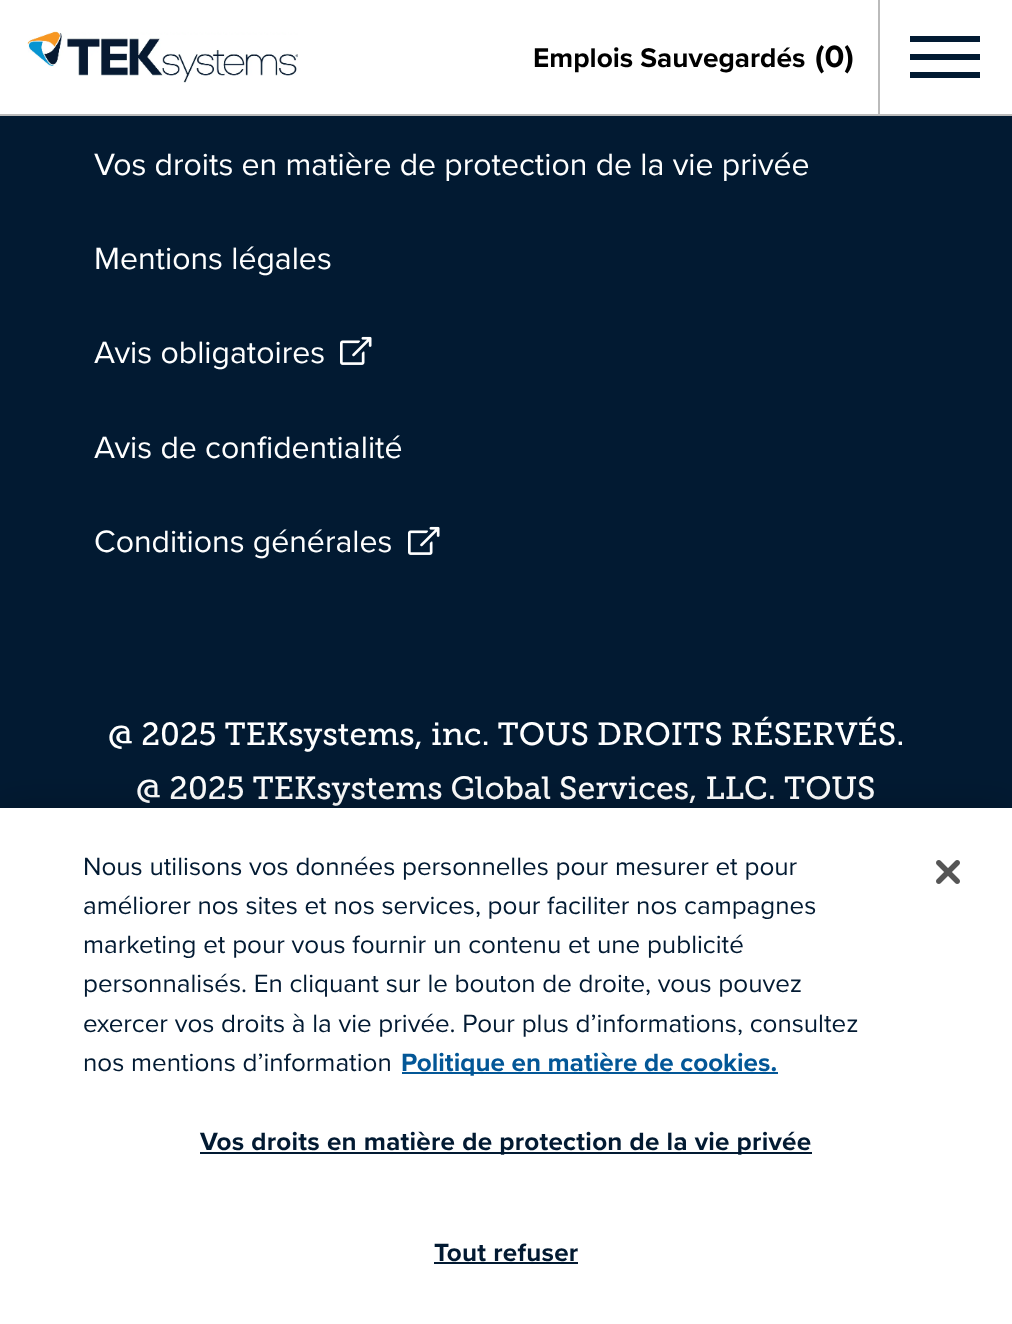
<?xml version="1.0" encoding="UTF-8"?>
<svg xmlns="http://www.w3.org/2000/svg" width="1012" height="1324">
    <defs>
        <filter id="blur1" x="-50%" y="-200%" width="200%" height="500%"><feGaussianBlur stdDeviation="18"/></filter>
    </defs>
    <rect width="100%" height="100%" fill="#021A32"/>
    <rect x="0" y="0" width="1012" height="114" fill="#FFFFFF"/>
    <rect x="0" y="114" width="1012" height="2" fill="#BBBBBB"/>
    <image x="27" y="31" width="271" height="52" href="img_01.png"/>
    <text x="533" y="67" font-family="Proxima Nova" font-size="28" font-weight="700" fill="#000000">Emplois Sauvegardés</text>
    <text x="815" y="67" font-family="Proxima Nova" font-size="32" font-weight="700" fill="#000000">(0)</text>
    <rect x="878" y="0" width="2" height="114" fill="#BBBBBB"/>
    <rect x="910" y="36" width="70" height="6" fill="#021A32"/>
    <rect x="910" y="54" width="70" height="6" fill="#021A32"/>
    <rect x="910" y="72" width="70" height="6" fill="#021A32"/>
    <text x="94" y="175" font-family="Proxima Nova" font-size="32" fill="#FFFFFF">Vos droits en matière de protection de la vie privée</text>
    <text x="94" y="269" font-family="Proxima Nova" font-size="32" fill="#FFFFFF">Mentions légales</text>
    <text x="94" y="363" font-family="Proxima Nova" font-size="32" fill="#FFFFFF">Avis obligatoires</text>
    <image x="340" y="336" width="32" height="29" href="img_02.png"/>
    <text x="94" y="458" font-family="Proxima Nova" font-size="32" fill="#FFFFFF">Avis de confidentialité</text>
    <text x="94" y="552" font-family="Proxima Nova" font-size="32" fill="#FFFFFF">Conditions générales</text>
    <image x="408" y="526" width="32" height="29" href="img_02.png"/>
    <text x="108" y="745" font-family="'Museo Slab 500'" font-size="32" fill="#FFFFFF">@ 2025 TEKsystems, inc. TOUS DROITS RÉSERVÉS.</text>
    <text x="136" y="799" font-family="'Museo Slab 500'" font-size="32" fill="#FFFFFF">@ 2025 TEKsystems Global Services, LLC. TOUS</text>
    <rect x="0" y="808" width="1012" height="516" fill="#000000" fill-opacity="0.2" filter="url(#blur1)"/>
    <rect x="0" y="808" width="1012" height="516" fill="#FFFFFF"/>
    <text font-family="Proxima Nova" font-size="26" fill="#021A32">
        <tspan x="83" y="875">Nous utilisons vos données personnelles pour mesurer et pour</tspan>
        <tspan x="83" y="914">améliorer nos sites et nos services, pour faciliter nos campagnes</tspan>
        <tspan x="83" y="953">marketing et pour vous fournir un contenu et une publicité</tspan>
        <tspan x="83" y="992">personnalisés. En cliquant sur le bouton de droite, vous pouvez</tspan>
        <tspan x="83" y="1032">exercer vos droits à la vie privée. Pour plus d’informations, consultez</tspan>
        <tspan x="83" y="1071">nos mentions d’information</tspan>
    </text>
    <rect x="402" y="1072" width="376" height="2" fill="#035797"/>
    <text x="401" y="1071" font-family="Proxima Nova" font-size="26" font-weight="700" fill="#035797">Politique en matière de cookies.</text>
    <rect x="200" y="1152" width="612" height="2" fill="#021A32"/>
    <text x="200" y="1150" font-family="Proxima Nova" font-size="26" font-weight="700" letter-spacing="0.25" fill="#021A32">Vos droits en matière de protection de la vie privée</text>
    <text x="434" y="1261" font-family="Proxima Nova" font-size="26" font-weight="700" letter-spacing="0.25" fill="#021A32">Tout refuser</text>
    <rect x="434" y="1262" width="144" height="2" fill="#021A32"/>
    <image x="936" y="860" width="24" height="24" href="img_03.png"/>
</svg>
